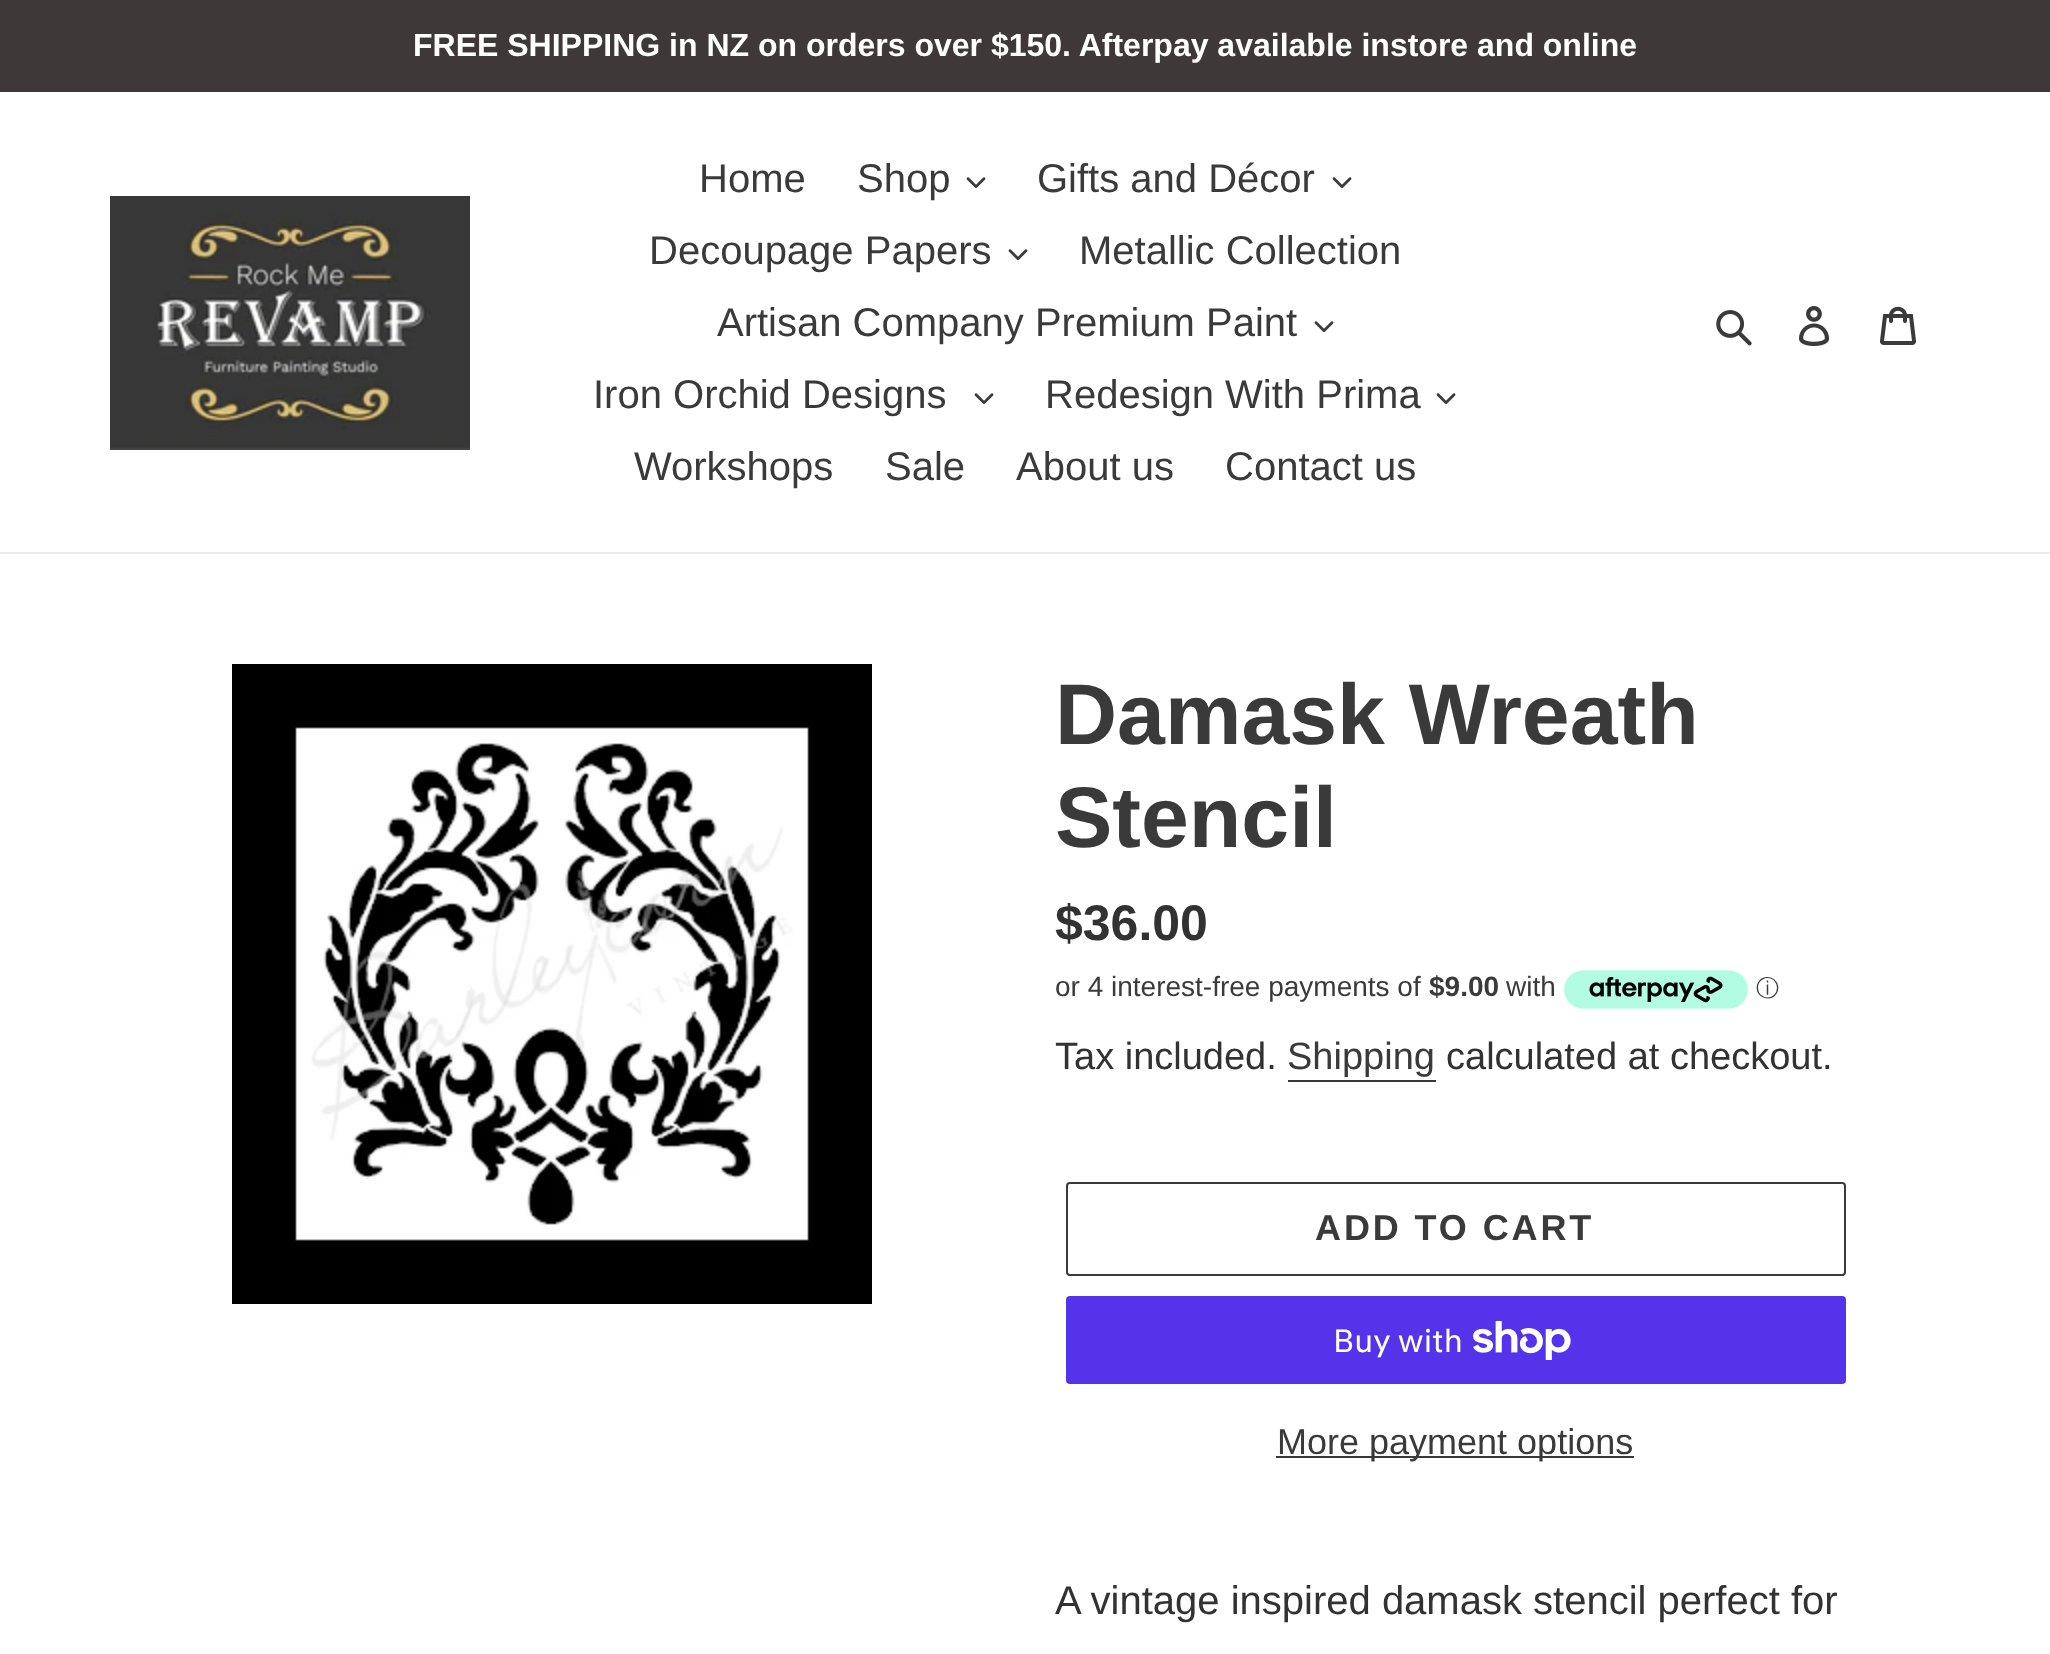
(async () => {
const canvas = document.querySelector("canvas")
canvas.width = 2050
canvas.height = 1654
const c = canvas.getContext("2d")
c.miterLimit = 4
c.fontKerning = "normal"
function T(s,x,y){c.fillText(s,x,y)}
function R(x,y,w,h){c.fillRect(x,y,w,h)}
function Q(x,y,w,h,r){c.beginPath();c.roundRect(x,y,w,h,r);c.fill()}
async function I(src,x,y,w,h){const img=new Image();img.src=src;await img.decode();c.drawImage(img,x,y,w,h)}
c.fillStyle="#fff"
R(0,0,2050,1654)
c.fillStyle="#3e3838"
R(0,0,2050,92)
c.font="bold 32px Liberation Sans"
c.fillStyle="#fff"
T("FREE SHIPPING in NZ on orders over $150. Afterpay available instore and online",413,56)
c.fillStyle="#ebebeb"
R(0,552,2050,2)
await I("1.png",110,196,360,254)
c.font="40px Liberation Sans"
c.fillStyle="#3a3a3a"
T("Home",699,192)
T("Shop",857,192)
await I("2.png",966,177,20,11)
T("Gifts and Décor",1037,192)
await I("2.png",1332,177,20,11)
T("Decoupage Papers",649,264)
await I("2.png",1008,249,20,11)
T("Metallic Collection",1079,264)
T("Artisan Company Premium Paint",717,336)
await I("2.png",1314,321,20,11)
T("Iron Orchid Designs",593,408)
await I("2.png",974,393,20,11)
T("Redesign With Prima",1045,408)
await I("2.png",1436,393,20,11)
T("Workshops",634,480)
T("Sale",885,480)
T("About us",1016,480)
T("Contact us",1225,480)
await I("3.png",1716,310,36,36)
await I("4.png",1799,306,31,40)
await I("5.png",1880,306,36,39)
await I("6.png",232,664,640,640)
c.font="bold 86px Liberation Sans"
T("Damask Wreath",1055,744)
T("Stencil",1055,847)
c.font="bold 50px Liberation Sans"
c.fillStyle="#333232"
T("$36.00",1055,940)
c.font="28px Liberation Sans"
c.fillStyle="#3a3a3a"
T("or 4 interest-free payments of",1055,996)
c.font="bold 28px Liberation Sans"
T("$9.00",1429,996)
c.font="28px Liberation Sans"
T("with",1506,996)
await I("7.png",1564,970,184,39)
c.font="500 23px WenQuanYi Zen Hei"
T("ⓘ",1756,996)
c.font="38px Liberation Sans"
c.fillStyle="#333232"
T("Tax included.",1055,1069)
c.fillStyle="#3a3a3a"
T("Shipping",1287,1069)
R(1288,1080,148,2)
c.fillStyle="#333232"
T("calculated at checkout.",1446,1069)
c.beginPath()
c.roundRect(1067,1183,778,92,3)
c.strokeStyle="#3a3a3a"
c.lineWidth=2
c.stroke()
c.letterSpacing="2.9px"
c.font="bold 36px Liberation Sans"
c.fillStyle="#3a3a3a"
T("ADD TO CART",1315,1240)
c.fillStyle="#5433eb"
Q(1066,1296,780,88,4)
c.letterSpacing="0px"
c.font="32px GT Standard"
c.fillStyle="#fff"
T("Buy with",1333,1352)
await I("8.png",1473,1321,98,39)
c.fillStyle="#3a3a3a"
R(1276,1456,358,2)
c.font="36px Liberation Sans"
T("More payment options",1277,1454)
c.font="40px Liberation Sans"
c.fillStyle="#333232"
T("A vintage inspired damask stencil perfect for",1055,1614)
})()
